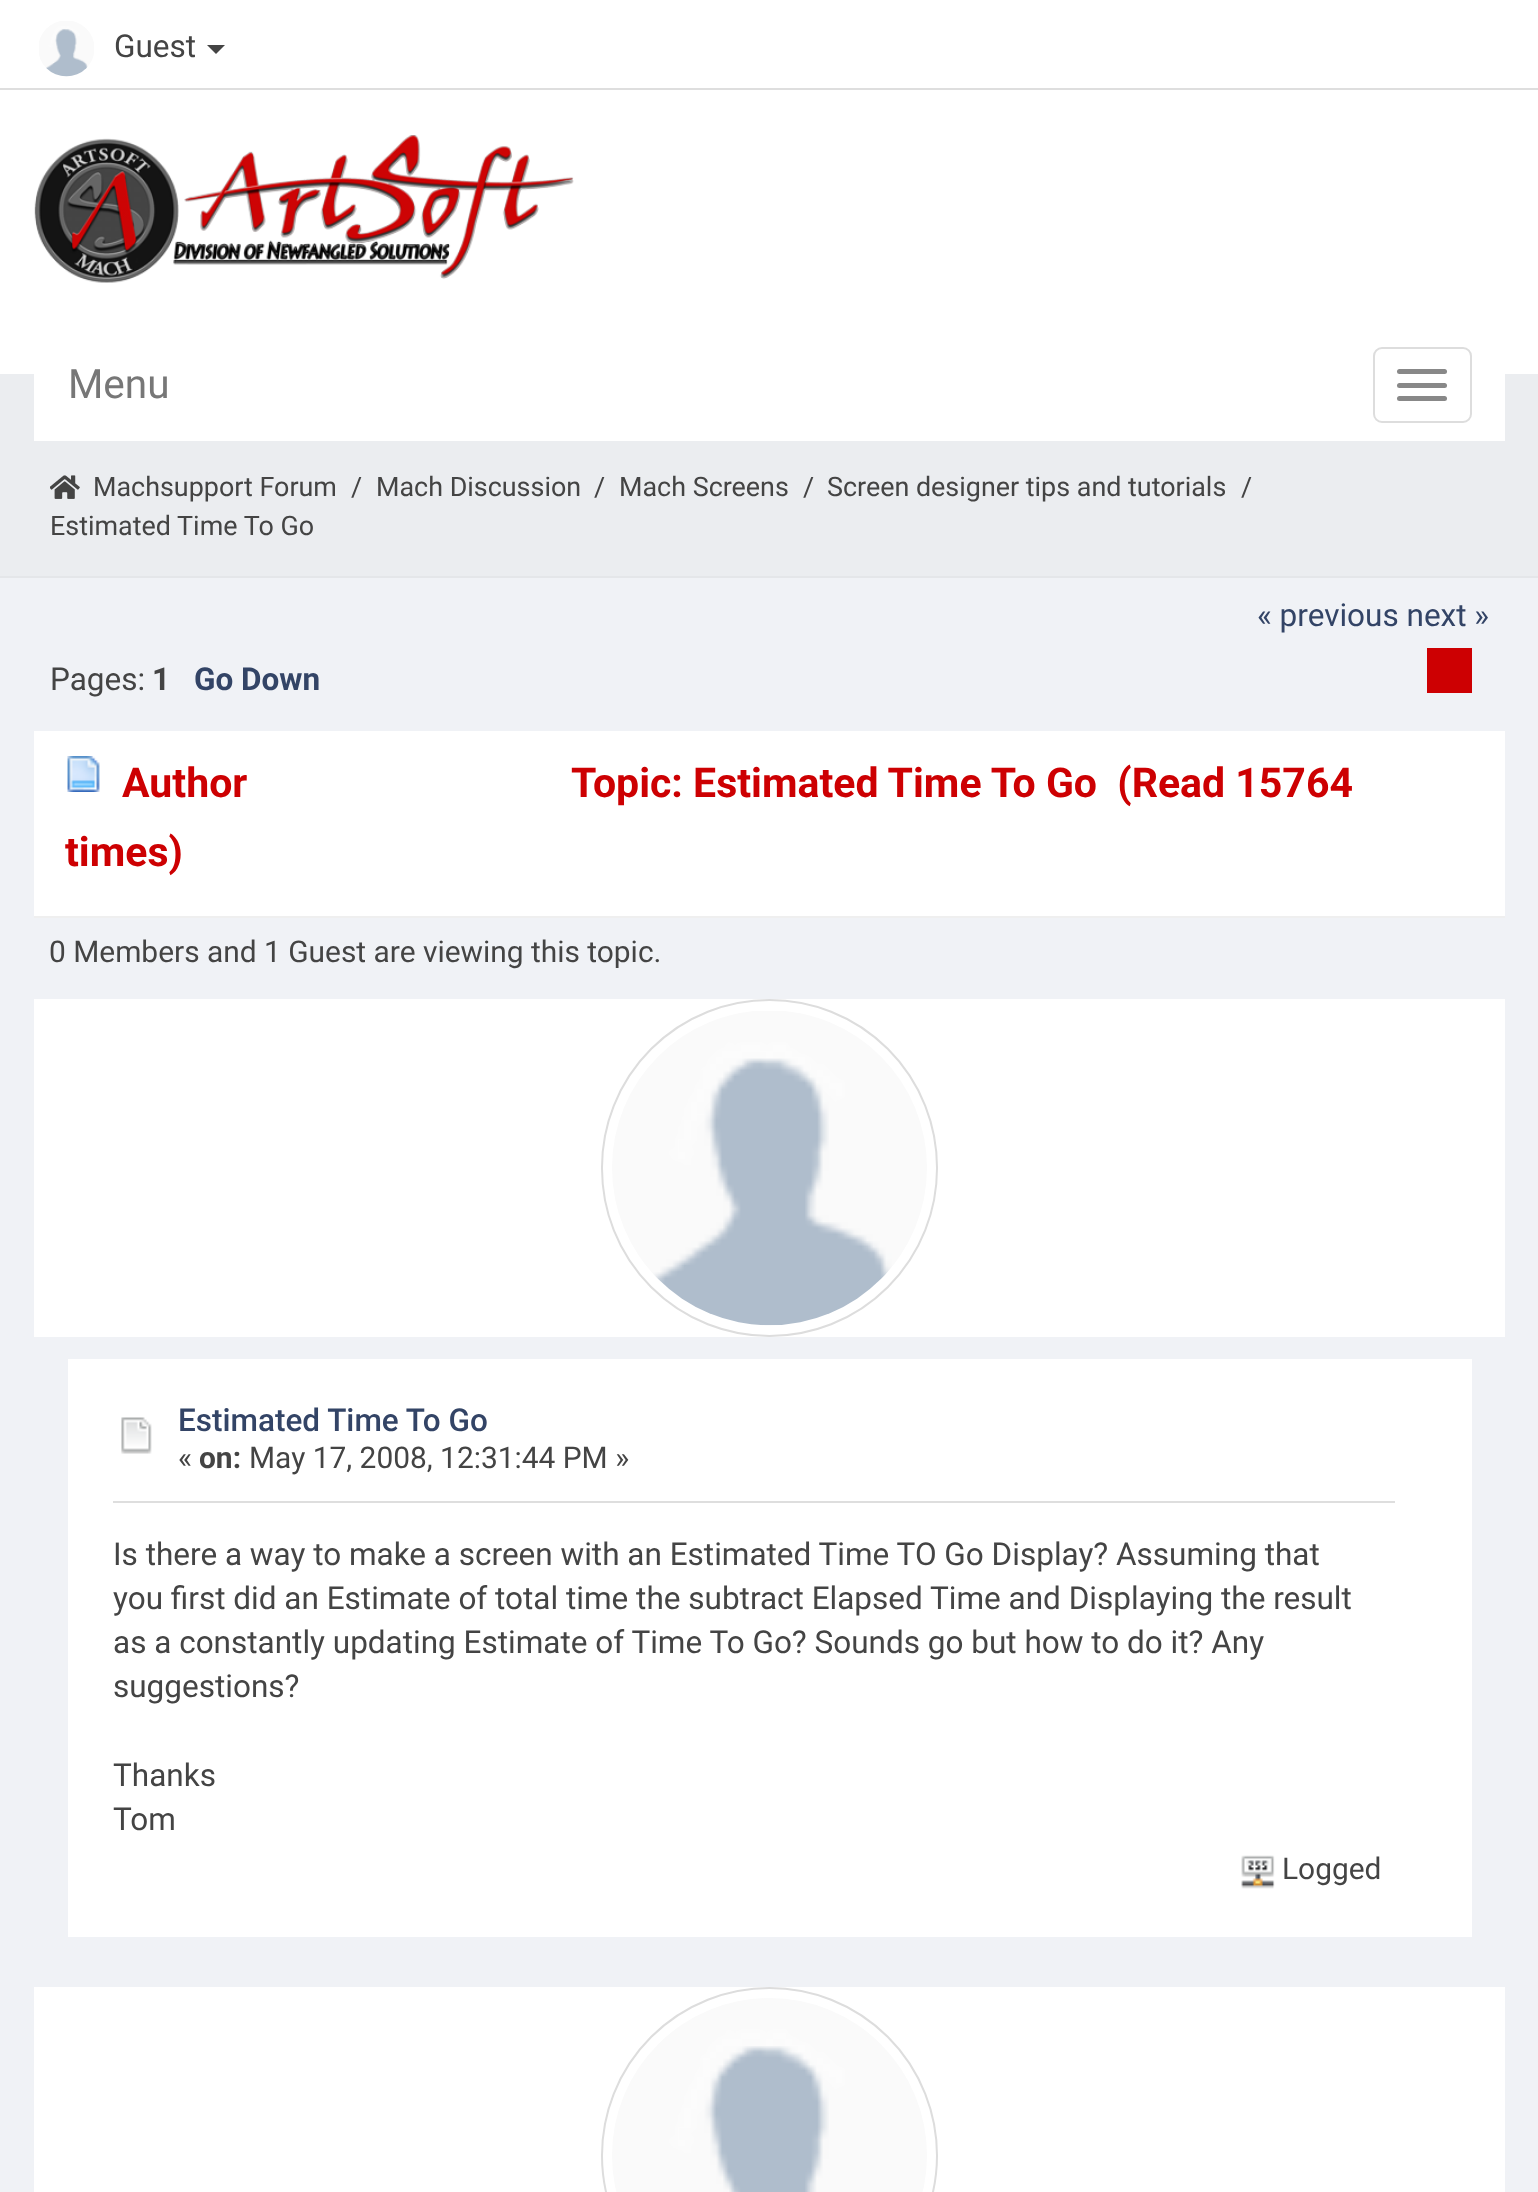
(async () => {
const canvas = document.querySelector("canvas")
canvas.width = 1538
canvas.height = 2192
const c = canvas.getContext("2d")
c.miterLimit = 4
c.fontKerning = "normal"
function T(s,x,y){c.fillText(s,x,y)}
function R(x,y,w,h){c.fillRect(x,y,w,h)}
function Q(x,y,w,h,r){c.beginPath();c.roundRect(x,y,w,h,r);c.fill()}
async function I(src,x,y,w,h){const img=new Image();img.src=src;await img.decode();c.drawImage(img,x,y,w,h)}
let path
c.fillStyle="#f0f2f6"
R(0,0,1538,2192)
c.fillStyle="#fff"
R(0,0,1538,88)
c.fillStyle="#dedede"
R(0,88,1538,2)
await I("1.png",39,21,55,56)
c.font="31.5px Roboto"
c.fillStyle="#444"
T("Guest",114,57)
path = new Path2D("M207 45h18l-9 9z")
c.fill(path)
c.fillStyle="#fff"
R(0,90,1538,284)
await I("2.png",34,135,540,148)
c.fillStyle="#ebedf0"
R(0,374,1538,202)
c.fillStyle="#fff"
R(34,374,1471,67)
c.font="40.5px Roboto"
c.fillStyle="#777"
T("Menu",68,398)
c.beginPath()
c.roundRect(1374,348,97,74,8)
c.strokeStyle="#ddd"
c.lineWidth=2
c.stroke()
c.fillStyle="#888"
Q(1397,369,50,5,2.5)
Q(1397,383,50,5,2.5)
Q(1397,396,50,5,2.5)
c.fillStyle="#e4e6e9"
R(0,576,1538,2)
await I("3.png",50,475,30,24)
c.font="26.9px Roboto"
c.fillStyle="#444"
T("Machsupport Forum",93,496)
T("/",351,496)
T("Mach Discussion",376,496)
T("/",594,496)
T("Mach Screens",619,496)
T("/",803,496)
T("Screen designer tips and tutorials",827,496)
T("/",1241,496)
T("Estimated Time To Go",50,535)
c.font="31.5px Roboto"
c.fillStyle="#346"
T("« previous next »",1257,626)
c.fillStyle="#444"
T("Pages:",50,690)
c.font="bold 31.5px Roboto"
T("1",152,690)
c.fillStyle="#346"
T("Go Down",194,690)
c.fillStyle="#cd0002"
R(1427,648,45,45)
c.fillStyle="#fff"
R(34,731,1471,185)
c.fillStyle="#efefef"
R(34,916,1471,2)
await I("4.png",67,756,33,36)
c.font="bold 41px Roboto"
c.fillStyle="#cd0002"
T("Author",122,797)
T("Topic: Estimated Time To Go  (Read 15764",571,797)
T("times)",65,866)
c.font="29.9px Roboto"
c.fillStyle="#444"
T("0 Members and 1 Guest are viewing this topic.",49,962)
c.fillStyle="#fff"
R(34,999,1471,338)
c.beginPath()
c.roundRect(602,1000,335,336,167.5)
c.stroke()
await I("5.png",612,1011,315,315)
R(68,1359,1404,578)
await I("6.png",121,1417,31,37)
c.font="500 31.5px Roboto"
c.fillStyle="#346"
T("Estimated Time To Go",178,1431)
c.font="29.9px Roboto"
c.fillStyle="#444"
T("«",178,1468)
c.font="bold 29.9px Roboto"
T("on:",199,1468)
c.font="29.9px Roboto"
T("May 17, 2008, 12:31:44 PM »",249,1468)
c.fillStyle="#dedede"
R(113,1501,1282,2)
c.font="31.5px Roboto"
c.fillStyle="#444"
T("Is there a way to make a screen with an Estimated Time TO Go Display? Assuming that",113,1565)
T("you first did an Estimate of total time the subtract Elapsed Time and Displaying the result",113,1609)
T("as a constantly updating Estimate of Time To Go? Sounds go but how to do it? Any",113,1653)
T("suggestions?",113,1697)
T("Thanks",113,1786)
T("Tom",113,1830)
await I("7.png",1241,1855,34,34)
c.font="29.9px Roboto"
T("Logged",1282,1879)
c.fillStyle="#fff"
R(34,1987,1471,205)
c.beginPath()
c.arc(769.5,2155.5,167.5,0,7)
c.stroke()
await I("8.png",612,1998,315,194)
})()
